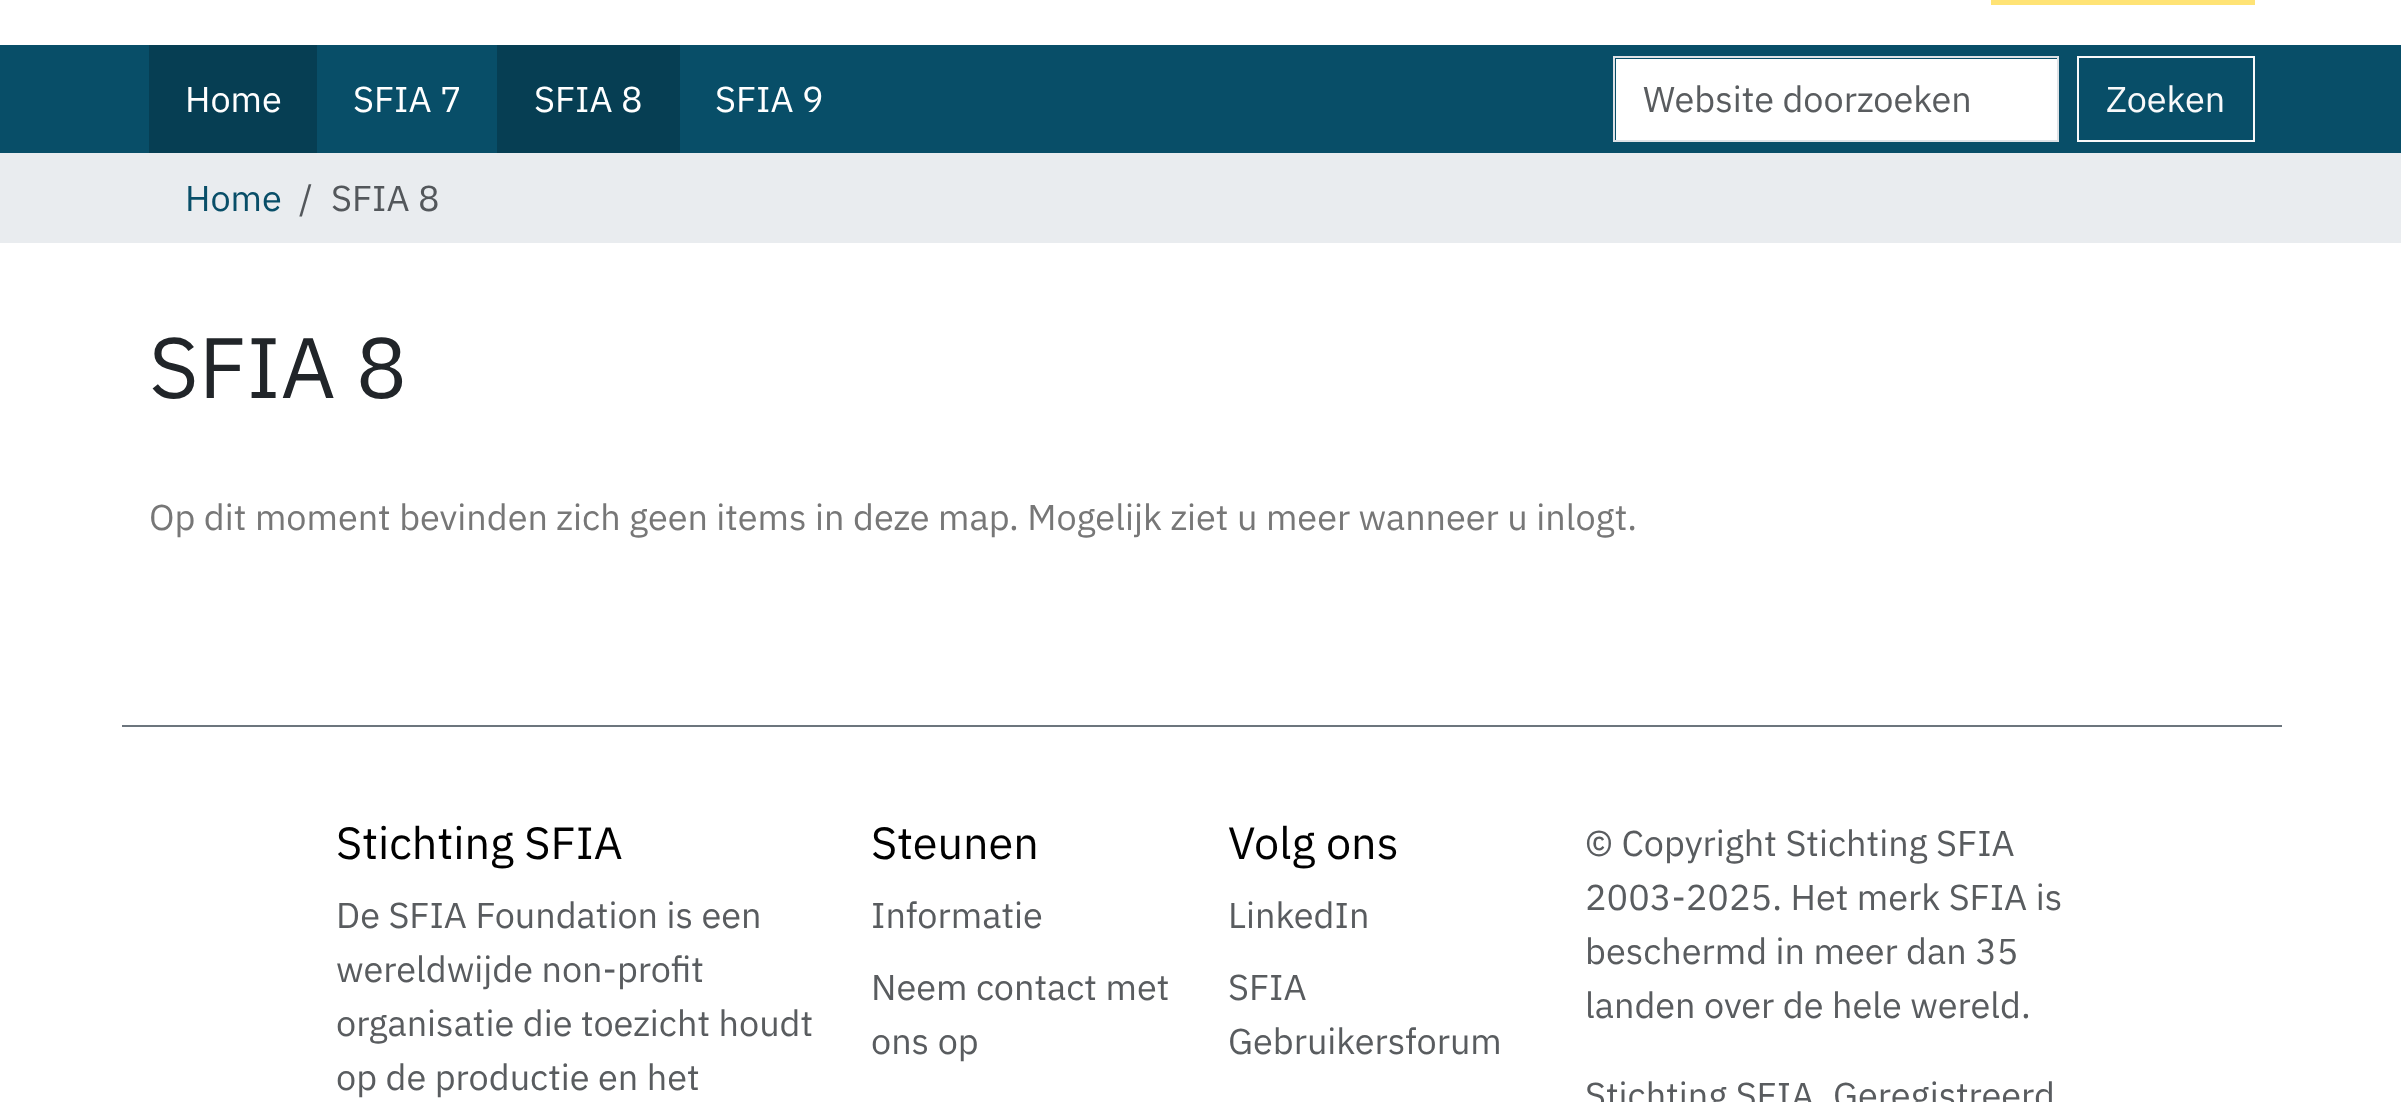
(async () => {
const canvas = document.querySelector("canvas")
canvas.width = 2401
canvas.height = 1102
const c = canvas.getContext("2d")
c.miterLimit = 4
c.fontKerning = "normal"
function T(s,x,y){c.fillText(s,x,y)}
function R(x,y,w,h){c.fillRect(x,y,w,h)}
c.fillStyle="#fff"
R(0,0,2401,1102)
c.fillStyle="#ffe375"
R(1991,0,264,5)
c.fillStyle="#084e68"
R(0,45,2401,108)
c.fillStyle="#063e53"
R(149,45,168,108)
c.font="36px IBM Plex Sans"
c.fillStyle="#fff"
T("Home",185,112)
T("SFIA 7",353,112)
c.fillStyle="#063e53"
R(497,45,183,108)
c.fillStyle="#fff"
T("SFIA 8",534,112)
T("SFIA 9",715,112)
R(1616,59,441,81)
c.strokeStyle="#dee2e6"
c.lineWidth=2
c.strokeRect(1614,57,444,84)
c.fillStyle="#595c5f"
T("Website doorzoeken",1643,112)
c.strokeStyle="#f8f9fa"
c.strokeRect(2078,57,176,84)
c.fillStyle="#f8f9fa"
T("Zoeken",2106,112)
c.fillStyle="#e9ecef"
R(0,153,2401,90)
c.fillStyle="#084e68"
T("Home",185,211)
c.fillStyle="#53575b"
T("/",299,211)
T("SFIA 8",331,211)
c.font="85.5px IBM Plex Sans"
c.fillStyle="#212529"
T("SFIA 8",149,398)
c.font="36px IBM Plex Sans"
c.fillStyle="#777"
T("Op dit moment bevinden zich geen items in deze map. Mogelijk ziet u meer wanneer u inlogt.",149,530)
c.fillStyle="#6c757d"
R(122,725,2160,2)
c.font="45px IBM Plex Sans"
c.fillStyle="#000"
T("Stichting SFIA",336,859)
c.font="36px IBM Plex Sans"
c.fillStyle="#595c5f"
T("De SFIA Foundation is een",336,928)
T("wereldwijde non-profit",336,982)
T("organisatie die toezicht houdt",336,1036)
T("op de productie en het",336,1090)
c.font="45px IBM Plex Sans"
c.fillStyle="#000"
T("Steunen",871,859)
c.font="36px IBM Plex Sans"
c.fillStyle="#595c5f"
T("Informatie",871,928)
T("Neem contact met",871,1000)
T("ons op",871,1054)
c.font="45px IBM Plex Sans"
c.fillStyle="#000"
T("Volg ons",1228,859)
c.font="36px IBM Plex Sans"
c.fillStyle="#595c5f"
T("LinkedIn",1228,928)
T("SFIA",1228,1000)
T("Gebruikersforum",1228,1054)
T("© Copyright Stichting SFIA",1585,856)
T("2003-2025. Het merk SFIA is",1585,910)
T("beschermd in meer dan 35",1585,964)
T("landen over de hele wereld.",1585,1018)
T("Stichting SFIA. Geregistreerd",1585,1108)
})()
